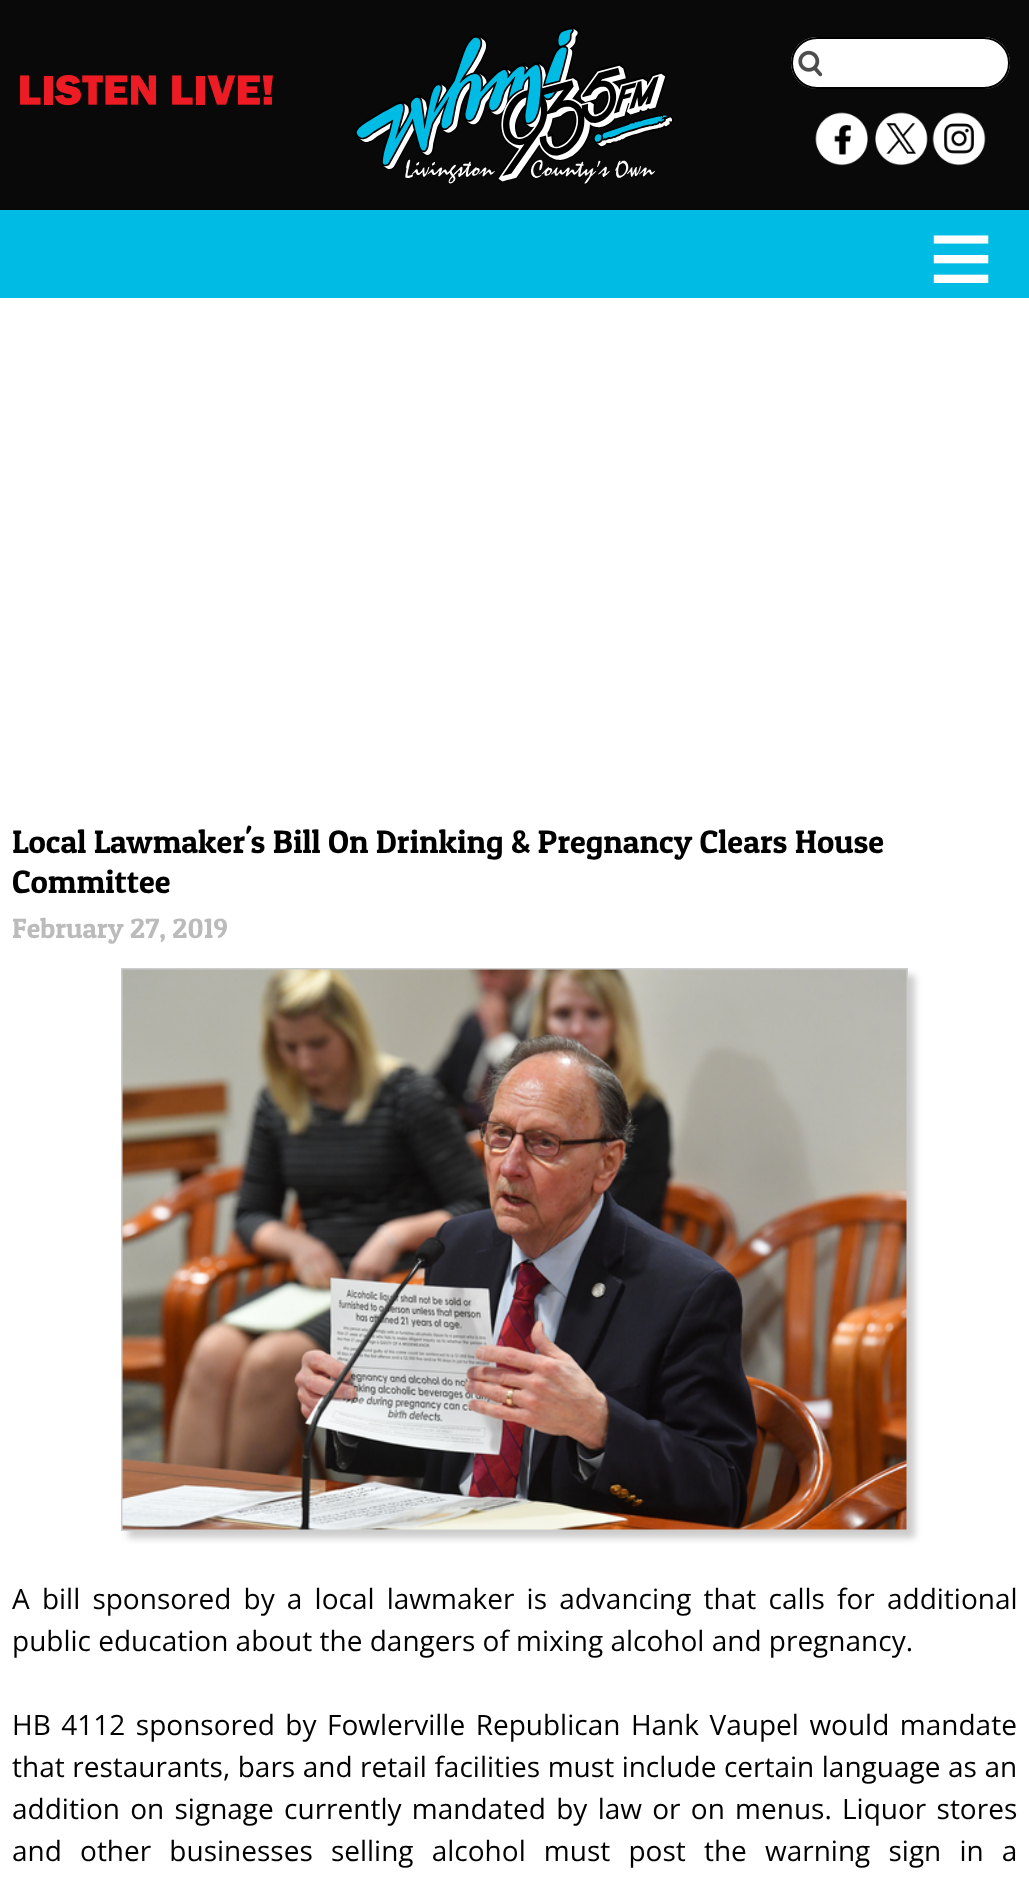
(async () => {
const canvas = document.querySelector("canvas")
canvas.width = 1029
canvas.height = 1893
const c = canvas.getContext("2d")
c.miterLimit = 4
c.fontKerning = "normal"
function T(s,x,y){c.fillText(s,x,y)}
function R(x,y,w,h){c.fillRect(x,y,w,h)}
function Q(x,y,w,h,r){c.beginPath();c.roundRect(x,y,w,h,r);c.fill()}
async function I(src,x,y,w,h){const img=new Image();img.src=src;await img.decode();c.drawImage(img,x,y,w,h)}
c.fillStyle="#fff"
R(0,0,1029,1893)
c.fillStyle="#090909"
R(0,0,1029,210)
await I("1.png",20,75,253,31)
await I("2.png",355,26,319,158)
c.fillStyle="#fff"
Q(791,37,219,52,26)
await I("3.png",798,50,25,27)
c.beginPath()
c.roundRect(792,38,217,50,25)
c.strokeStyle="#000"
c.lineWidth=2
c.stroke()
await I("4.png",815,112,53,54)
await I("5.png",875,112,53,54)
await I("6.png",932,112,54,54)
c.fillStyle="#00bbe4"
R(0,210,1029,88)
c.font="bold 117px Liberation Serif"
c.fillStyle="#fff"
T("≡",928,298)
c.font="32.7px Patua One"
c.fillStyle="#000"
T("Local Lawmaker's Bill On Drinking & Pregnancy Clears House",12,853)
T("Committee",12,893)
c.font="28px Patua One"
c.fillStyle="#bbb"
T("February 27, 2019",12,938)
c.fillStyle="#ccc"
c.filter="blur(3.5px)"
c.beginPath()
c.rect(128,975,787,563)
c.fill()
c.filter="none"
c.strokeStyle="#ccc"
c.strokeRect(122,969,785,561)
await I("7.png",122,969,785,561)
c.wordSpacing="4.9px"
c.font="28px Open Sans"
c.fillStyle="#000"
T("A bill sponsored by a local lawmaker is advancing that calls for additional",12,1609)
c.wordSpacing="0px"
T("public education about the dangers of mixing alcohol and pregnancy.",12,1651)
c.wordSpacing="3.25px"
T("HB 4112 sponsored by Fowlerville Republican Hank Vaupel would mandate",12,1735)
c.wordSpacing="0.25px"
T("that restaurants, bars and retail facilities must include certain language as an",12,1777)
c.wordSpacing="3px"
T("addition on signage currently mandated by law or on menus.",12,1819)
T("Liquor stores",842,1819)
c.wordSpacing="10.9px"
T("and other businesses selling alcohol must post the warning sign in a",12,1861)
})()
